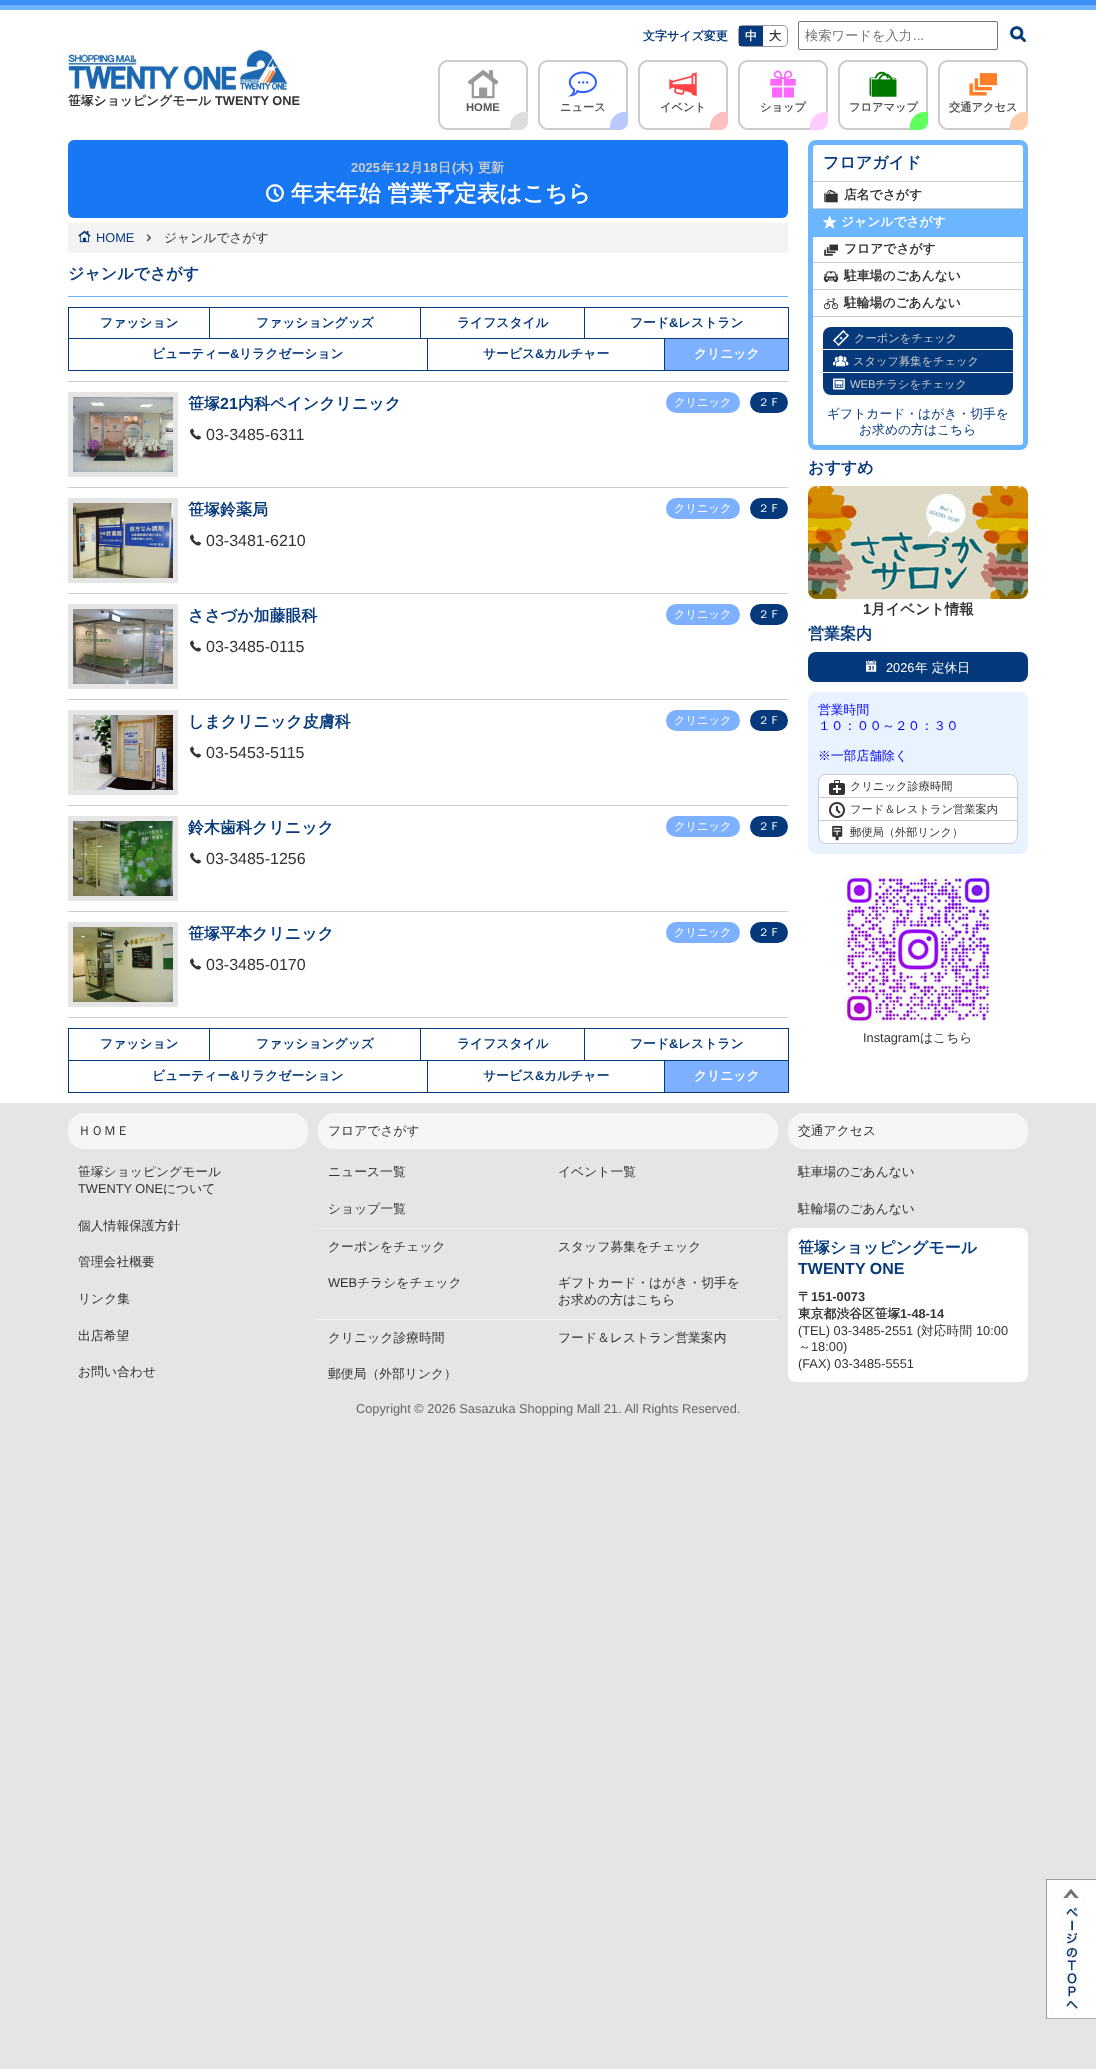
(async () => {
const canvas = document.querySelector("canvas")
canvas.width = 1096
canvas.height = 2069
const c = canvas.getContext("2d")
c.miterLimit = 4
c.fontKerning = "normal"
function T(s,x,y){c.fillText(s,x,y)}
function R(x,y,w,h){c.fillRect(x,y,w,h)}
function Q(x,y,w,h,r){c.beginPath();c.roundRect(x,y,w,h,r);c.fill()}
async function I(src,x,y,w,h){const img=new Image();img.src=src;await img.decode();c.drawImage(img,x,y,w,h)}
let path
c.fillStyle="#e5e5e5"
R(0,0,1096,2069)
c.fillStyle="#3c8ff7"
R(0,0,1096,5)
c.fillStyle="#fff"
R(0,10,1096,1093)
c.fillStyle="#6cb6ff"
R(0,5,1096,5)
await I("1.png",68,50,219,40)
c.font="bold 12.8px WenQuanYi Zen Hei"
c.fillStyle="#333"
T("笹塚ショッピングモール",68,105)
c.font="bold 12.8px Liberation Sans"
T("TWENTY ONE",215,105)
c.font="bold 12px WenQuanYi Zen Hei"
c.fillStyle="#063a7c"
T("文字サイズ変更",643,40)
c.beginPath()
c.roundRect(738.5,25.5,49,21,4.5)
c.strokeStyle="#999"
c.stroke()
R(739,26,24,20)
c.fillStyle="#fff"
T("中",745,40)
c.fillStyle="#333"
T("大",769,40)
c.beginPath()
c.roundRect(798.5,21.5,199,28,1.5)
c.strokeStyle="#767676"
c.stroke()
c.font="500 13.25px WenQuanYi Zen Hei"
c.fillStyle="#757575"
T("検索ワードを入力",805,40)
c.font="13.25px Liberation Sans"
T("...",913,40)
await I("2.png",1010,26,16,16)
await I("3.png",438,60,90,70)
await I("4.png",467,69,32,30)
c.font="bold 11.25px Liberation Sans"
c.fillStyle="#555"
T("HOME",466,111)
await I("5.png",538,60,90,70)
await I("6.png",568,71,29,26)
c.font="bold 11.25px WenQuanYi Zen Hei"
T("ニュース",560,111)
await I("7.png",638,60,90,70)
await I("8.png",669,72,28,25)
T("イベント",660,111)
await I("9.png",738,60,90,70)
await I("10.png",770,70,26,28)
T("ショップ",760,111)
await I("11.png",838,60,90,70)
await I("12.png",869,71,28,26)
T("フロアマップ",849,111)
await I("13.png",938,60,90,70)
await I("14.png",969,73,28,23)
T("交通アクセス",949,111)
c.fillStyle="#1877f2"
Q(68,140,720,78,6)
c.font="bold 13px Liberation Sans"
c.fillStyle="#ccc"
T("2025",351,172)
c.font="bold 13px WenQuanYi Zen Hei"
T("年",381,172)
c.font="bold 13px Liberation Sans"
T("12",395,172)
c.font="bold 13px WenQuanYi Zen Hei"
T("月",410,172)
c.font="bold 13px Liberation Sans"
T("18",423,172)
c.font="bold 13px WenQuanYi Zen Hei"
T("日",438,172)
c.font="bold 13px Liberation Sans"
T("(",452,172)
c.font="bold 13px WenQuanYi Zen Hei"
T("木",456,172)
c.font="bold 13px Liberation Sans"
T(")",469,172)
c.font="bold 13px WenQuanYi Zen Hei"
T("更新",478,172)
await I("15.png",266,184,18,19)
c.font="bold 22.4px WenQuanYi Zen Hei"
c.fillStyle="#fff"
T("年末年始 営業予定表はこちら",291,201)
c.fillStyle="#f3f3f3"
R(68,223,720,30)
await I("16.png",78,230,13,13)
c.font="12.8px Liberation Sans"
c.fillStyle="#063a7c"
T("HOME",96,242)
await I("17.png",146,234,5,8)
c.font="500 12.8px WenQuanYi Zen Hei"
c.fillStyle="#333"
T("ジャンルでさがす",164,242)
c.fillStyle="#6cb6ff"
R(68,296,720,1)
c.font="bold 16px WenQuanYi Zen Hei"
c.fillStyle="#063a7c"
T("ジャンルでさがす",68,279)
R(68,307,721,1)
R(68,307,1,31)
R(209,308,1,30)
c.font="bold 12.8px WenQuanYi Zen Hei"
T("ファッション",100,327)
R(420,308,1,30)
T("ファッショングッズ",256,327)
R(584,308,1,30)
T("ライフスタイル",457,327)
R(788,308,1,30)
T("フード",630,327)
c.font="bold 12.8px Liberation Sans"
T("&",669,327)
c.font="bold 12.8px WenQuanYi Zen Hei"
T("レストラン",678,327)
R(68,338,721,1)
R(68,338,1,33)
R(427,339,1,32)
R(69,370,359,1)
T("ビューティー",152,358)
c.font="bold 12.8px Liberation Sans"
T("&",230,358)
c.font="bold 12.8px WenQuanYi Zen Hei"
T("リラクゼーション",239,358)
R(664,339,1,32)
R(428,370,237,1)
T("サービス",483,358)
c.font="bold 12.8px Liberation Sans"
T("&",535,358)
c.font="bold 12.8px WenQuanYi Zen Hei"
T("カルチャー",544,358)
R(788,339,1,32)
R(665,370,124,1)
c.fillStyle="#7db1ff"
R(665,339,123,31)
c.fillStyle="#fff"
T("クリニック",694,358)
c.fillStyle="#ccc"
R(68,381,720,1)
R(68,487,720,1)
c.fillStyle="#e5e5e5"
R(68,392,110,85)
await I("18.png",73,397,100,75)
c.font="bold 16px WenQuanYi Zen Hei"
c.fillStyle="#063a7c"
T("笹塚",188,409)
c.font="bold 16px Liberation Sans"
T("21",220,409)
c.font="bold 16px WenQuanYi Zen Hei"
T("内科ペインクリニック",238,409)
c.fillStyle="#7db1ff"
Q(666,392,74,21,10.5)
c.font="500 11.25px WenQuanYi Zen Hei"
c.fillStyle="#fff"
T("クリニック",674,406)
c.fillStyle="#06397b"
Q(750,392,38,21,10.5)
c.fillStyle="#fff"
T("２Ｆ",758,406)
await I("19.png",190,428,12,12)
c.font="16px Liberation Sans"
c.fillStyle="#333"
T("03-3485-6311",206,440)
c.fillStyle="#ccc"
R(68,593,720,1)
c.fillStyle="#e5e5e5"
R(68,498,110,85)
await I("20.png",73,503,100,75)
c.font="bold 16px WenQuanYi Zen Hei"
c.fillStyle="#063a7c"
T("笹塚鈴薬局",188,515)
c.fillStyle="#7db1ff"
Q(666,498,74,21,10.5)
c.font="500 11.25px WenQuanYi Zen Hei"
c.fillStyle="#fff"
T("クリニック",674,512)
c.fillStyle="#06397b"
Q(750,498,38,21,10.5)
c.fillStyle="#fff"
T("２Ｆ",758,512)
await I("19.png",190,534,12,12)
c.font="16px Liberation Sans"
c.fillStyle="#333"
T("03-3481-6210",206,546)
c.fillStyle="#ccc"
R(68,699,720,1)
c.fillStyle="#e5e5e5"
R(68,604,110,85)
await I("21.png",73,609,100,75)
c.font="bold 16px WenQuanYi Zen Hei"
c.fillStyle="#063a7c"
T("ささづか加藤眼科",188,621)
c.fillStyle="#7db1ff"
Q(666,604,74,21,10.5)
c.font="500 11.25px WenQuanYi Zen Hei"
c.fillStyle="#fff"
T("クリニック",674,618)
c.fillStyle="#06397b"
Q(750,604,38,21,10.5)
c.fillStyle="#fff"
T("２Ｆ",758,618)
await I("19.png",190,640,12,12)
c.font="16px Liberation Sans"
c.fillStyle="#333"
T("03-3485-0115",206,652)
c.fillStyle="#ccc"
R(68,805,720,1)
c.fillStyle="#e5e5e5"
R(68,710,110,85)
await I("22.png",73,715,100,75)
c.font="bold 16px WenQuanYi Zen Hei"
c.fillStyle="#063a7c"
T("しまクリニック皮膚科",188,727)
c.fillStyle="#7db1ff"
Q(666,710,74,21,10.5)
c.font="500 11.25px WenQuanYi Zen Hei"
c.fillStyle="#fff"
T("クリニック",674,724)
c.fillStyle="#06397b"
Q(750,710,38,21,10.5)
c.fillStyle="#fff"
T("２Ｆ",758,724)
await I("19.png",190,746,12,12)
c.font="16px Liberation Sans"
c.fillStyle="#333"
T("03-5453-5115",206,758)
c.fillStyle="#ccc"
R(68,911,720,1)
c.fillStyle="#e5e5e5"
R(68,816,110,85)
await I("23.png",73,821,100,75)
c.font="bold 16px WenQuanYi Zen Hei"
c.fillStyle="#063a7c"
T("鈴木歯科クリニック",188,833)
c.fillStyle="#7db1ff"
Q(666,816,74,21,10.5)
c.font="500 11.25px WenQuanYi Zen Hei"
c.fillStyle="#fff"
T("クリニック",674,830)
c.fillStyle="#06397b"
Q(750,816,38,21,10.5)
c.fillStyle="#fff"
T("２Ｆ",758,830)
await I("19.png",190,852,12,12)
c.font="16px Liberation Sans"
c.fillStyle="#333"
T("03-3485-1256",206,864)
c.fillStyle="#ccc"
R(68,1017,720,1)
c.fillStyle="#e5e5e5"
R(68,922,110,85)
await I("24.png",73,927,100,75)
c.font="bold 16px WenQuanYi Zen Hei"
c.fillStyle="#063a7c"
T("笹塚平本クリニック",188,939)
c.fillStyle="#7db1ff"
Q(666,922,74,21,10.5)
c.font="500 11.25px WenQuanYi Zen Hei"
c.fillStyle="#fff"
T("クリニック",674,936)
c.fillStyle="#06397b"
Q(750,922,38,21,10.5)
c.fillStyle="#fff"
T("２Ｆ",758,936)
await I("19.png",190,958,12,12)
c.font="16px Liberation Sans"
c.fillStyle="#333"
T("03-3485-0170",206,970)
c.fillStyle="#063a7c"
R(68,1028,721,1)
R(68,1028,1,32)
R(209,1029,1,31)
c.font="bold 12.8px WenQuanYi Zen Hei"
T("ファッション",100,1048)
R(420,1029,1,31)
T("ファッショングッズ",256,1048)
R(584,1029,1,31)
T("ライフスタイル",457,1048)
R(788,1029,1,31)
T("フード",630,1048)
c.font="bold 12.8px Liberation Sans"
T("&",669,1048)
c.font="bold 12.8px WenQuanYi Zen Hei"
T("レストラン",678,1048)
R(68,1060,721,1)
R(68,1060,1,33)
R(427,1061,1,32)
R(69,1092,359,1)
T("ビューティー",152,1080)
c.font="bold 12.8px Liberation Sans"
T("&",230,1080)
c.font="bold 12.8px WenQuanYi Zen Hei"
T("リラクゼーション",239,1080)
R(664,1061,1,32)
R(428,1092,237,1)
T("サービス",483,1080)
c.font="bold 12.8px Liberation Sans"
T("&",535,1080)
c.font="bold 12.8px WenQuanYi Zen Hei"
T("カルチャー",544,1080)
R(788,1061,1,32)
R(665,1092,124,1)
c.fillStyle="#7db1ff"
R(665,1061,123,31)
c.fillStyle="#fff"
T("クリニック",694,1080)
c.beginPath()
c.roundRect(810.5,142.5,215,305,5.5)
c.strokeStyle="#6cb6ff"
c.lineWidth=5
c.stroke()
c.font="bold 16px WenQuanYi Zen Hei"
c.fillStyle="#063a7c"
T("フロアガイド",823,168)
c.fillStyle="#ccc"
R(813,181,210,1)
R(813,208,210,1)
await I("25.png",824,189,14,14)
c.font="bold 12.8px WenQuanYi Zen Hei"
c.fillStyle="#333"
T("店名でさがす",844,199)
c.fillStyle="#6cb6ff"
R(813,209,210,28)
await I("26.png",823,215,14,14)
c.fillStyle="#fff"
T("ジャンルでさがす",841,226)
c.fillStyle="#ccc"
R(813,262,210,1)
await I("27.png",824,244,14,12)
c.fillStyle="#333"
T("フロアでさがす",844,253)
c.fillStyle="#ccc"
R(813,289,210,1)
await I("28.png",823,271,16,12)
c.fillStyle="#333"
T("駐車場のごあんない",844,280)
c.fillStyle="#ccc"
R(813,316,210,1)
await I("29.png",823,298,16,12)
c.fillStyle="#333"
T("駐輪場のごあんない",844,307)
c.fillStyle="#06397b"
c.beginPath()
c.roundRect(823,327,190,23,[8,8,0,0])
c.fill()
c.fillStyle="#fff"
R(823,349,190,1)
await I("30.png",833,330,16,16)
c.font="500 11.25px WenQuanYi Zen Hei"
c.fillStyle="#ccc"
T("クーポンをチェック",854,342)
c.fillStyle="#06397b"
R(823,350,190,22)
await I("31.png",833,355,16,12)
c.fillStyle="#ccc"
T("スタッフ募集をチェック",853,365)
c.fillStyle="#06397b"
c.beginPath()
c.roundRect(823,373,190,22,[0,0,8,8])
c.fill()
await I("32.png",833,378,12,12)
c.font="11.25px Liberation Sans"
c.fillStyle="#ccc"
T("WEB",850,388)
c.font="500 11.25px WenQuanYi Zen Hei"
T("チラシをチェック",875,388)
c.font="500 12.8px WenQuanYi Zen Hei"
c.fillStyle="#063a7c"
T("ギフトカード・はがき・切手を",827,418)
T("お求めの方はこちら",859,434)
c.font="bold 16px WenQuanYi Zen Hei"
T("おすすめ",808,473)
await I("33.png",808,486,220,113)
c.font="bold 14.5px Liberation Sans"
c.fillStyle="#333"
T("1",863,614)
c.font="bold 14.5px WenQuanYi Zen Hei"
T("月イベント情報",871,614)
c.font="bold 16px WenQuanYi Zen Hei"
c.fillStyle="#063a7c"
T("営業案内",808,639)
c.fillStyle="#06397b"
Q(808,652,220,30,8)
await I("34.png",866,660,11,12)
c.font="12.8px Liberation Sans"
c.fillStyle="#fff"
T("2026",886,672)
c.font="500 12.8px WenQuanYi Zen Hei"
T("年 定休日",915,672)
c.fillStyle="#e8f3ff"
Q(808,692,220,162,8)
c.fillStyle="#00f"
T("営業時間",818,714)
T("１０：００～２０：３０",818,730)
T("※一部店舗除く",818,760)
c.beginPath()
c.roundRect(818.5,774.5,199,69,7.5)
c.strokeStyle="#ccc"
c.lineWidth=1
c.stroke()
c.fillStyle="#fff"
c.beginPath()
c.roundRect(819,775,198,23,[8,8,0,0])
c.fill()
c.fillStyle="#ccc"
R(819,797,198,1)
await I("35.png",829,780,16,15)
c.font="500 11.25px WenQuanYi Zen Hei"
c.fillStyle="#333"
T("クリニック診療時間",850,790)
c.fillStyle="#fff"
R(819,798,198,22)
c.fillStyle="#ccc"
R(819,820,198,1)
await I("36.png",829,802,16,16)
c.fillStyle="#333"
T("フード＆レストラン営業案内",850,813)
c.fillStyle="#fff"
c.beginPath()
c.roundRect(819,821,198,22,[0,0,8,8])
c.fill()
await I("37.png",832,825,11,16)
c.fillStyle="#333"
T("郵便局（外部リンク）",850,836)
await I("38.png",843,874,150,150)
c.font="12.8px Liberation Sans"
T("Instagram",863,1042)
c.font="500 12.8px WenQuanYi Zen Hei"
T("はこちら",920,1042)
c.fillStyle="#f6f6f6"
Q(68,1113,240,36,16)
c.fillStyle="#333"
T("ＨＯＭＥ",78,1135)
T("笹塚ショッピングモール",78,1176)
c.font="12.8px Liberation Sans"
T("TWENTY ONE",78,1193)
c.font="500 12.8px WenQuanYi Zen Hei"
T("について",163,1193)
T("個人情報保護方針",78,1230)
T("管理会社概要",78,1266)
T("リンク集",78,1303)
T("出店希望",78,1340)
T("お問い合わせ",78,1376)
path = new Path2D("M318 1228.5h460")
c.strokeStyle="#fff"
c.setLineDash([1,1])
c.stroke(path)
c.fillStyle="#f6f6f6"
Q(318,1113,460,36,16)
c.fillStyle="#333"
T("フロアでさがす",328,1135)
T("ニュース一覧",328,1176)
T("イベント一覧",558,1176)
T("ショップ一覧",328,1213)
path = new Path2D("M318 1319.5h460")
c.stroke(path)
T("クーポンをチェック",328,1251)
T("スタッフ募集をチェック",558,1251)
c.font="12.8px Liberation Sans"
T("WEB",328,1287)
c.font="500 12.8px WenQuanYi Zen Hei"
T("チラシをチェック",357,1287)
T("ギフトカード・はがき・切手を",558,1287)
T("お求めの方はこちら",558,1304)
T("クリニック診療時間",328,1342)
T("フード＆レストラン営業案内",558,1342)
T("郵便局（外部リンク）",328,1378)
c.fillStyle="#f6f6f6"
Q(788,1113,240,36,16)
c.fillStyle="#333"
T("交通アクセス",798,1135)
T("駐車場のごあんない",798,1176)
T("駐輪場のごあんない",798,1213)
c.fillStyle="#fff"
Q(788,1228,240,154,8)
c.font="bold 16px WenQuanYi Zen Hei"
c.fillStyle="#063a7c"
T("笹塚ショッピングモール",798,1253)
c.font="bold 16px Liberation Sans"
T("TWENTY ONE",798,1274)
c.font="bold 12.8px WenQuanYi Zen Hei"
c.fillStyle="#333"
T("〒",798,1301)
c.font="bold 12.8px Liberation Sans"
T("151-0073",811,1301)
c.font="bold 12.8px WenQuanYi Zen Hei"
T("東京都渋谷区笹塚",798,1318)
c.font="bold 12.8px Liberation Sans"
T("1-48-14",900,1318)
c.font="12.8px Liberation Sans"
T("(TEL) 03-3485-2551 (",798,1335)
c.font="500 12.8px WenQuanYi Zen Hei"
T("対応時間",921,1335)
c.font="12.8px Liberation Sans"
T("10:00",976,1335)
c.font="500 12.8px WenQuanYi Zen Hei"
T("～",798,1351)
c.font="12.8px Liberation Sans"
T("18:00)",811,1351)
T("(FAX) 03-3485-5551",798,1368)
c.fillStyle="#666"
T("Copyright © 2026 Sasazuka Shopping Mall 21. All Rights Reserved.",356,1413)
await I("39.png",1046,1879,50,140)
})()
